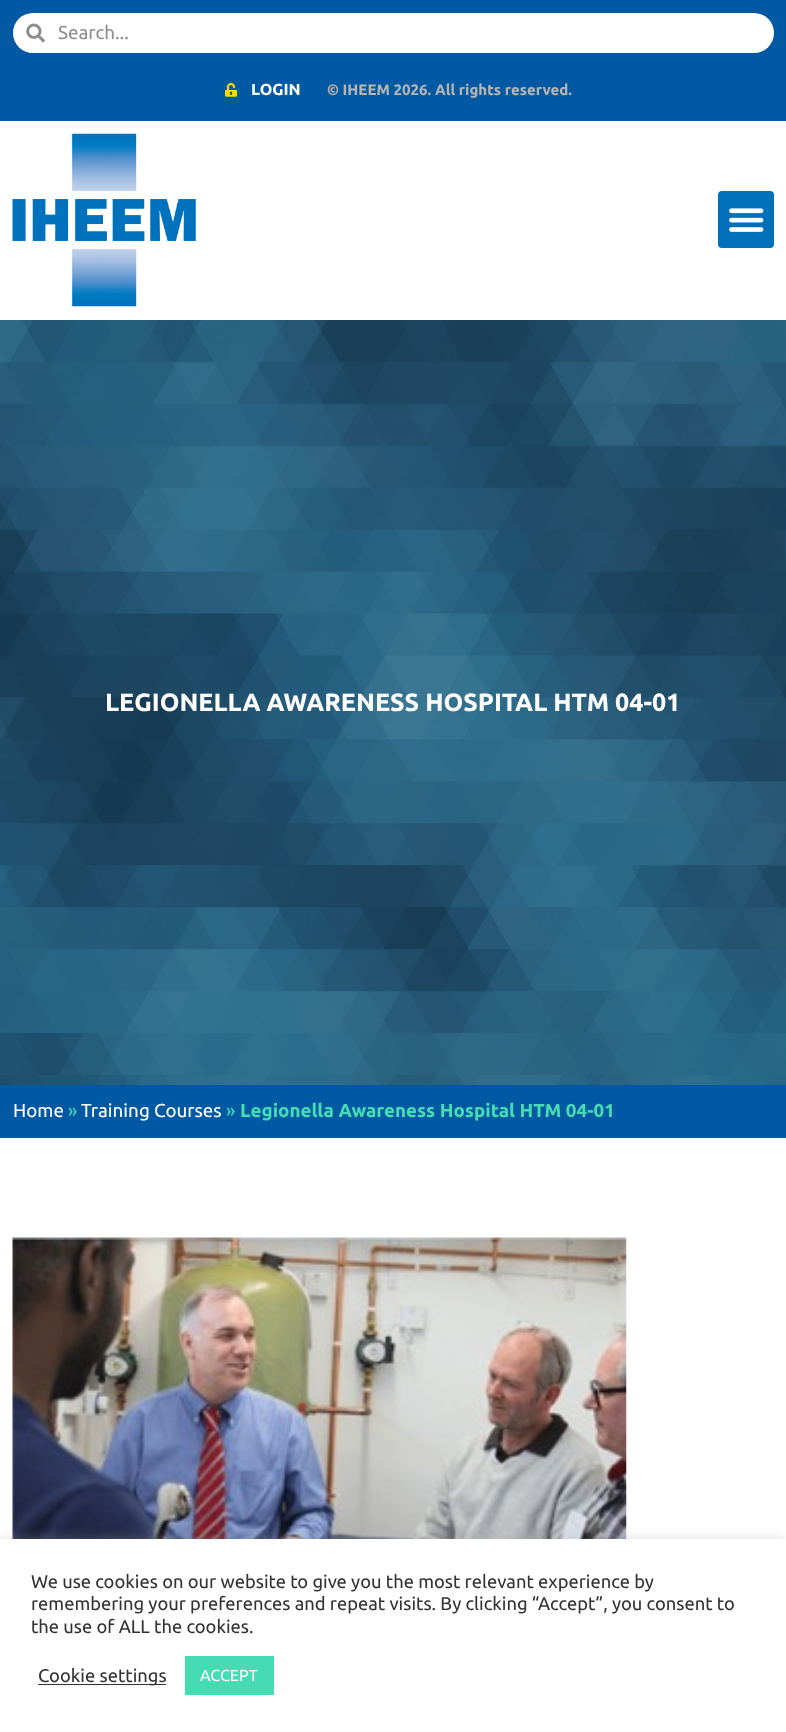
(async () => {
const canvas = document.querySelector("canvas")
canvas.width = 786
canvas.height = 1732
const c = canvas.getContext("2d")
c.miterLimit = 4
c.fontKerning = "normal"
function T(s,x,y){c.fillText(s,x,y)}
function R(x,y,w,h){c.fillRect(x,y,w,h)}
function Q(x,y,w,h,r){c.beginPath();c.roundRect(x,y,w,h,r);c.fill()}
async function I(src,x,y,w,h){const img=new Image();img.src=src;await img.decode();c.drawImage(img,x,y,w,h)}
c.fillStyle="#fff"
R(0,0,786,1732)
c.fillStyle="#0159a3"
R(0,0,786,121)
c.fillStyle="#fff"
Q(13,13,761,40,20)
await I("1.png",26,23,19,20)
c.font="18.75px Ubuntu"
c.fillStyle="#8d8d8d"
T("Search...",58,39)
await I("2.png",225,83,13,14)
c.font="bold 16px Ubuntu"
c.fillStyle="#fff"
T("LOGIN",251,95)
c.font="bold 15px Ubuntu"
c.fillStyle="#b5b5b5"
T("© IHEEM 2026. All rights reserved.",327,95)
await I("3.png",12,133,184,174)
c.fillStyle="#0070ba"
Q(718,191,56,57,4)
await I("4.png",729,208,35,24)
await I("5.png",0,320,786,765)
c.font="bold 25px Ubuntu"
c.fillStyle="#fff"
T("LEGIONELLA AWARENESS HOSPITAL HTM 04-01",105,711)
c.fillStyle="#0159a3"
R(0,1085,786,53)
c.font="18.75px Ubuntu"
c.fillStyle="#fff"
T("Home",13,1117)
c.fillStyle="#45dbb3"
T("»",68,1117)
c.fillStyle="#fff"
T("Training Courses",81,1117)
c.fillStyle="#45dbb3"
T("»",226,1117)
c.font="bold 18.75px Ubuntu"
T("Legionella Awareness Hospital HTM 04-01",240,1117)
await I("6.png",12,1237,615,302)
c.fillStyle="#acabab4d"
c.filter="blur(6px)"
c.beginPath()
c.rect(0,1538,786,193)
c.fill()
c.filter="none"
c.fillStyle="#fff"
R(0,1539,786,193)
c.font="18.35px Ubuntu"
c.fillStyle="#333"
T("We use cookies on our website to give you the most relevant experience by",31,1588)
T("remembering your preferences and repeat visits. By clicking “Accept”, you consent to",31,1610)
T("the use of ALL the cookies.",31,1633)
R(38,1684,128,1)
T("Cookie settings",38,1682)
c.fillStyle="#45dbb3"
R(185,1656,89,39)
c.font="16px Ubuntu"
c.fillStyle="#fff"
T("ACCEPT",200,1681)
})()
